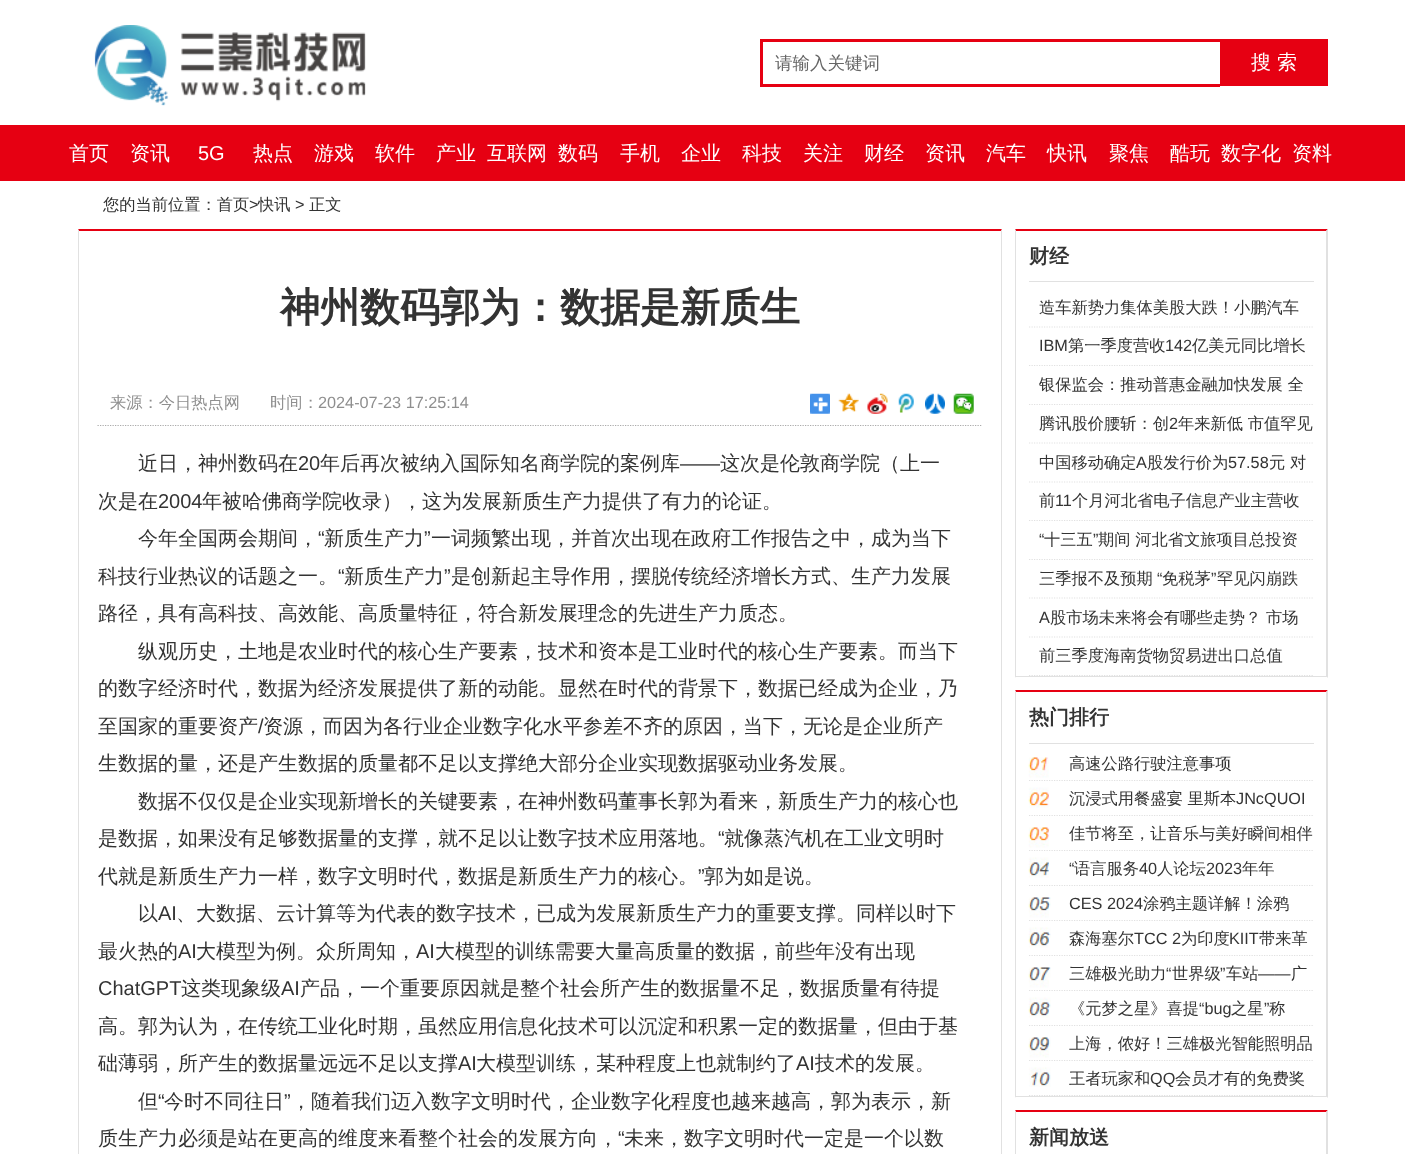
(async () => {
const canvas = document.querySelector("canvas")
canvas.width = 1405
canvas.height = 1154
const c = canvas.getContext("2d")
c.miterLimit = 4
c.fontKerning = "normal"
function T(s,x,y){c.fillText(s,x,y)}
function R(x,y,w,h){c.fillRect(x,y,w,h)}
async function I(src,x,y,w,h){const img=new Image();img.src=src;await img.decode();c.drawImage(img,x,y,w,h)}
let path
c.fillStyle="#fff"
R(0,0,1405,1154)
await I("1.png",94,25,272,81)
c.fillStyle="#e60012"
R(760,39,460,3)
R(760,84,460,3)
R(760,39,3,47)
c.font="500 17.5px WenQuanYi Zen Hei"
c.fillStyle="#666"
T("请输入关键词",775,69)
c.fillStyle="#e60012"
R(1220,39,108,47)
c.font="500 20px WenQuanYi Zen Hei"
c.fillStyle="#fff"
T("搜 索",1251,69)
c.fillStyle="#e60012"
R(0,125,1405,56)
c.fillStyle="#fff"
T("首页",69,160)
T("资讯",130,160)
c.font="20px Liberation Sans"
T("5G",198,160)
c.font="500 20px WenQuanYi Zen Hei"
T("热点",253,160)
T("游戏",314,160)
T("软件",375,160)
T("产业",436,160)
T("互联网",487,160)
T("数码",558,160)
T("手机",620,160)
T("企业",681,160)
T("科技",742,160)
T("关注",803,160)
T("财经",864,160)
T("资讯",925,160)
T("汽车",986,160)
T("快讯",1047,160)
T("聚焦",1109,160)
T("酷玩",1170,160)
T("数字化",1221,160)
T("资料",1292,160)
c.font="500 16.25px WenQuanYi Zen Hei"
c.fillStyle="#333"
T("您的当前位置：首页",103,210)
c.font="16.25px Liberation Sans"
T(">",249,210)
c.font="500 16.25px WenQuanYi Zen Hei"
T("快讯",258,210)
c.font="16.25px Liberation Sans"
T(">",295,210)
c.font="500 16.25px WenQuanYi Zen Hei"
T("正文",309,210)
c.fillStyle="#e60012"
path = new Path2D("M78 229h924l-1 2h-922z")
c.fill(path)
c.fillStyle="#e1e1e1"
path = new Path2D("M1002 229v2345l-1-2v-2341z")
c.fill(path)
path = new Path2D("M78 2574v-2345l1 2v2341z")
c.fill(path)
c.font="bold 40px WenQuanYi Zen Hei"
c.fillStyle="#333"
T("神州数码郭为：数据是新质生",280,321)
path = new Path2D("M97.5 425.5h885")
c.strokeStyle="#ababab"
c.lineWidth=1.2
c.setLineDash([1.25,1.25])
c.stroke(path)
c.font="500 16.25px WenQuanYi Zen Hei"
c.fillStyle="#8f8f8f"
T("来源：今日热点网",110,408)
T("时间：",270,408)
c.font="16.25px Liberation Sans"
T("2024-07-23 17:25:14",318,408)
await I("2.png",810,393,20,21)
await I("3.png",838,393,21,19)
await I("4.png",867,393,21,21)
await I("5.png",898,393,16,20)
await I("6.png",925,393,20,21)
await I("7.png",953,393,21,21)
c.font="500 20px WenQuanYi Zen Hei"
c.fillStyle="#333"
T("近日，神州数码在",138,470)
c.font="20px Liberation Sans"
T("20",298,470)
c.font="500 20px WenQuanYi Zen Hei"
T("年后再次被纳入国际知名商学院的案例库",320,470)
c.font="20px Liberation Sans"
T("——",680,470)
c.font="500 20px WenQuanYi Zen Hei"
T("这次是伦敦商学院（上一",720,470)
T("次是在",98,508)
c.font="20px Liberation Sans"
T("2004",158,508)
c.font="500 20px WenQuanYi Zen Hei"
T("年被哈佛商学院收录），这为发展新质生产力提供了有力的论证。",202,508)
T("今年全国两会期间，",138,545)
c.font="20px Liberation Sans"
T("“",318,545)
c.font="500 20px WenQuanYi Zen Hei"
T("新质生产力",324,545)
c.font="20px Liberation Sans"
T("”",424,545)
c.font="500 20px WenQuanYi Zen Hei"
T("一词频繁出现，并首次出现在政府工作报告之中，成为当下",431,545)
T("科技行业热议的话题之一。",98,583)
c.font="20px Liberation Sans"
T("“",338,583)
c.font="500 20px WenQuanYi Zen Hei"
T("新质生产力",344,583)
c.font="20px Liberation Sans"
T("”",444,583)
c.font="500 20px WenQuanYi Zen Hei"
T("是创新起主导作用，摆脱传统经济增长方式、生产力发展",451,583)
T("路径，具有高科技、高效能、高质量特征，符合新发展理念的先进生产力质态。",98,620)
T("纵观历史，土地是农业时代的核心生产要素，技术和资本是工业时代的核心生产要素。而当下",138,658)
T("的数字经济时代，数据为经济发展提供了新的动能。显然在时代的背景下，数据已经成为企业，乃",98,695)
T("至国家的重要资产",98,733)
c.font="20px Liberation Sans"
T("/",258,733)
c.font="500 20px WenQuanYi Zen Hei"
T("资源，而因为各行业企业数字化水平参差不齐的原因，当下，无论是企业所产",263,733)
T("生数据的量，还是产生数据的质量都不足以支撑绝大部分企业实现数据驱动业务发展。",98,770)
T("数据不仅仅是企业实现新增长的关键要素，在神州数码董事长郭为看来，新质生产力的核心也",138,808)
T("是数据，如果没有足够数据量的支撑，就不足以让数字技术应用落地。",98,845)
c.font="20px Liberation Sans"
T("“",718,845)
c.font="500 20px WenQuanYi Zen Hei"
T("就像蒸汽机在工业文明时",724,845)
T("代就是新质生产力一样，数字文明时代，数据是新质生产力的核心。",98,883)
c.font="20px Liberation Sans"
T("”",698,883)
c.font="500 20px WenQuanYi Zen Hei"
T("郭为如是说。",704,883)
T("以",138,920)
c.font="20px Liberation Sans"
T("AI",158,920)
c.font="500 20px WenQuanYi Zen Hei"
T("、大数据、云计算等为代表的数字技术，已成为发展新质生产力的重要支撑。同样以时下",176,920)
T("最火热的",98,958)
c.font="20px Liberation Sans"
T("AI",178,958)
c.font="500 20px WenQuanYi Zen Hei"
T("大模型为例。众所周知，",196,958)
c.font="20px Liberation Sans"
T("AI",416,958)
c.font="500 20px WenQuanYi Zen Hei"
T("大模型的训练需要大量高质量的数据，前些年没有出现",435,958)
c.font="20px Liberation Sans"
T("ChatGPT",98,995)
c.font="500 20px WenQuanYi Zen Hei"
T("这类现象级",181,995)
c.font="20px Liberation Sans"
T("AI",281,995)
c.font="500 20px WenQuanYi Zen Hei"
T("产品，一个重要原因就是整个社会所产生的数据量不足，数据质量有待提",300,995)
T("高。郭为认为，在传统工业化时期，虽然应用信息化技术可以沉淀和积累一定的数据量，但由于基",98,1033)
T("础薄弱，所产生的数据量远远不足以支撑",98,1070)
c.font="20px Liberation Sans"
T("AI",458,1070)
c.font="500 20px WenQuanYi Zen Hei"
T("大模型训练，某种程度上也就制约了",476,1070)
c.font="20px Liberation Sans"
T("AI",796,1070)
c.font="500 20px WenQuanYi Zen Hei"
T("技术的发展。",815,1070)
T("但",138,1108)
c.font="20px Liberation Sans"
T("“",158,1108)
c.font="500 20px WenQuanYi Zen Hei"
T("今时不同往日",164,1108)
c.font="20px Liberation Sans"
T("”",284,1108)
c.font="500 20px WenQuanYi Zen Hei"
T("，随着我们迈入数字文明时代，企业数字化程度也越来越高，郭为表示，新",291,1108)
T("质生产力必须是站在更高的维度来看整个社会的发展方向，",98,1145)
c.font="20px Liberation Sans"
T("“",618,1145)
c.font="500 20px WenQuanYi Zen Hei"
T("未来，数字文明时代一定是一个以数",624,1145)
c.fillStyle="#e60012"
path = new Path2D("M1015 229h313l-2 2h-310z")
c.fill(path)
c.fillStyle="#e1e1e1"
path = new Path2D("M1328 229v449l-2-2v-445z")
c.fill(path)
R(1015,676,313,1)
path = new Path2D("M1015 678v-449l1 2v445z")
c.fill(path)
R(1029,281,285,1)
c.font="bold 20px WenQuanYi Zen Hei"
c.fillStyle="#333"
T("财经",1029,263)
path = new Path2D("M1029 327h285")
c.strokeStyle="#e1e1e1"
c.stroke(path)
c.font="500 16.25px WenQuanYi Zen Hei"
T("造车新势力集体美股大跌！小鹏汽车",1039,313)
path = new Path2D("M1029 365.5h285")
c.stroke(path)
c.font="16.25px Liberation Sans"
T("IBM",1039,351)
c.font="500 16.25px WenQuanYi Zen Hei"
T("第一季度营收",1068,351)
c.font="16.25px Liberation Sans"
T("142",1165,351)
c.font="500 16.25px WenQuanYi Zen Hei"
T("亿美元同比增长",1192,351)
path = new Path2D("M1029 404.5h285")
c.stroke(path)
T("银保监会：推动普惠金融加快发展 全",1039,390)
path = new Path2D("M1029 443h285")
c.stroke(path)
T("腾讯股价腰斩：创",1039,429)
c.font="16.25px Liberation Sans"
T("2",1169,429)
c.font="500 16.25px WenQuanYi Zen Hei"
T("年来新低 市值罕见",1178,429)
path = new Path2D("M1029 482h285")
c.stroke(path)
T("中国移动确定",1039,468)
c.font="16.25px Liberation Sans"
T("A",1136,468)
c.font="500 16.25px WenQuanYi Zen Hei"
T("股发行价为",1147,468)
c.font="16.25px Liberation Sans"
T("57.58",1228,468)
c.font="500 16.25px WenQuanYi Zen Hei"
T("元 对",1269,468)
path = new Path2D("M1029 520.5h285")
c.stroke(path)
T("前",1039,506)
c.font="16.25px Liberation Sans"
T("11",1055,506)
c.font="500 16.25px WenQuanYi Zen Hei"
T("个月河北省电子信息产业主营收",1072,506)
path = new Path2D("M1029 559.5h285")
c.stroke(path)
c.font="16.25px Liberation Sans"
T("“",1039,545)
c.font="500 16.25px WenQuanYi Zen Hei"
T("十三五",1044,545)
c.font="16.25px Liberation Sans"
T("”",1093,545)
c.font="500 16.25px WenQuanYi Zen Hei"
T("期间 河北省文旅项目总投资",1098,545)
path = new Path2D("M1029 598h285")
c.stroke(path)
T("三季报不及预期",1039,584)
c.font="16.25px Liberation Sans"
T("“",1157,584)
c.font="500 16.25px WenQuanYi Zen Hei"
T("免税茅",1162,584)
c.font="16.25px Liberation Sans"
T("”",1211,584)
c.font="500 16.25px WenQuanYi Zen Hei"
T("罕见闪崩跌",1217,584)
path = new Path2D("M1029 637h285")
c.stroke(path)
c.font="16.25px Liberation Sans"
T("A",1039,623)
c.font="500 16.25px WenQuanYi Zen Hei"
T("股市场未来将会有哪些走势？ 市场",1050,623)
c.save()
c.beginPath()
c.rect(1016,231,310,445)
c.clip()
path = new Path2D("M1029 675.5h285")
c.stroke(path)
c.restore()
T("前三季度海南货物贸易进出口总值",1039,661)
c.fillStyle="#e60012"
path = new Path2D("M1015 690h313l-2 2h-310z")
c.fill(path)
c.fillStyle="#e1e1e1"
path = new Path2D("M1328 690v408l-2-2v-404z")
c.fill(path)
R(1015,1096,313,1)
path = new Path2D("M1015 1098v-408l1 2v404z")
c.fill(path)
R(1029,743,285,1)
c.font="bold 20px WenQuanYi Zen Hei"
c.fillStyle="#333"
T("热门排行",1029,724)
await I("8.png",1028,757,23,330)
path = new Path2D("M1029 780.5h285")
c.stroke(path)
c.font="500 16.25px WenQuanYi Zen Hei"
T("高速公路行驶注意事项",1069,769)
path = new Path2D("M1029 815.5h285")
c.stroke(path)
T("沉浸式用餐盛宴 里斯本",1069,804)
c.font="16.25px Liberation Sans"
T("JNcQUOI",1236,804)
path = new Path2D("M1029 850.5h285")
c.stroke(path)
c.font="500 16.25px WenQuanYi Zen Hei"
T("佳节将至，让音乐与美好瞬间相伴",1069,839)
path = new Path2D("M1029 885.5h285")
c.stroke(path)
c.font="16.25px Liberation Sans"
T("“",1069,874)
c.font="500 16.25px WenQuanYi Zen Hei"
T("语言服务",1074,874)
c.font="16.25px Liberation Sans"
T("40",1139,874)
c.font="500 16.25px WenQuanYi Zen Hei"
T("人论坛",1157,874)
c.font="16.25px Liberation Sans"
T("2023",1206,874)
c.font="500 16.25px WenQuanYi Zen Hei"
T("年年",1242,874)
path = new Path2D("M1029 920.5h285")
c.stroke(path)
c.font="16.25px Liberation Sans"
T("CES 2024",1069,909)
c.font="500 16.25px WenQuanYi Zen Hei"
T("涂鸦主题详解！涂鸦",1143,909)
path = new Path2D("M1029 955.5h285")
c.stroke(path)
T("森海塞尔",1069,944)
c.font="16.25px Liberation Sans"
T("TCC 2",1134,944)
c.font="500 16.25px WenQuanYi Zen Hei"
T("为印度",1181,944)
c.font="16.25px Liberation Sans"
T("KIIT",1229,944)
c.font="500 16.25px WenQuanYi Zen Hei"
T("带来革",1259,944)
path = new Path2D("M1029 990.5h285")
c.stroke(path)
T("三雄极光助力",1069,979)
c.font="16.25px Liberation Sans"
T("“",1166,979)
c.font="500 16.25px WenQuanYi Zen Hei"
T("世界级",1172,979)
c.font="16.25px Liberation Sans"
T("”",1220,979)
c.font="500 16.25px WenQuanYi Zen Hei"
T("车站",1226,979)
T("广",1291,979)
c.font="16.25px Liberation Sans"
T("——",1258,979)
path = new Path2D("M1029 1025.5h285")
c.stroke(path)
c.font="500 16.25px WenQuanYi Zen Hei"
T("《元梦之星》喜提",1069,1014)
c.font="16.25px Liberation Sans"
T("“bug",1199,1014)
c.font="500 16.25px WenQuanYi Zen Hei"
T("之星",1231,1014)
c.font="16.25px Liberation Sans"
T("”",1264,1014)
c.font="500 16.25px WenQuanYi Zen Hei"
T("称",1269,1014)
path = new Path2D("M1029 1060.5h285")
c.stroke(path)
T("上海，侬好！三雄极光智能照明品",1069,1049)
c.save()
c.beginPath()
c.rect(1016,693,310,403)
c.clip()
path = new Path2D("M1029 1095.5h285")
c.stroke(path)
c.restore()
T("王者玩家和",1069,1084)
c.font="16.25px Liberation Sans"
T("QQ",1150,1084)
c.font="500 16.25px WenQuanYi Zen Hei"
T("会员才有的免费奖",1175,1084)
c.fillStyle="#e60012"
path = new Path2D("M1015 1110h313l-2 2h-310z")
c.fill(path)
c.fillStyle="#e1e1e1"
path = new Path2D("M1328 1110v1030l-2-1v-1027z")
c.fill(path)
path = new Path2D("M1015 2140v-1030l1 2v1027z")
c.fill(path)
c.font="bold 20px WenQuanYi Zen Hei"
c.fillStyle="#333"
T("新闻放送",1029,1144)
})()
